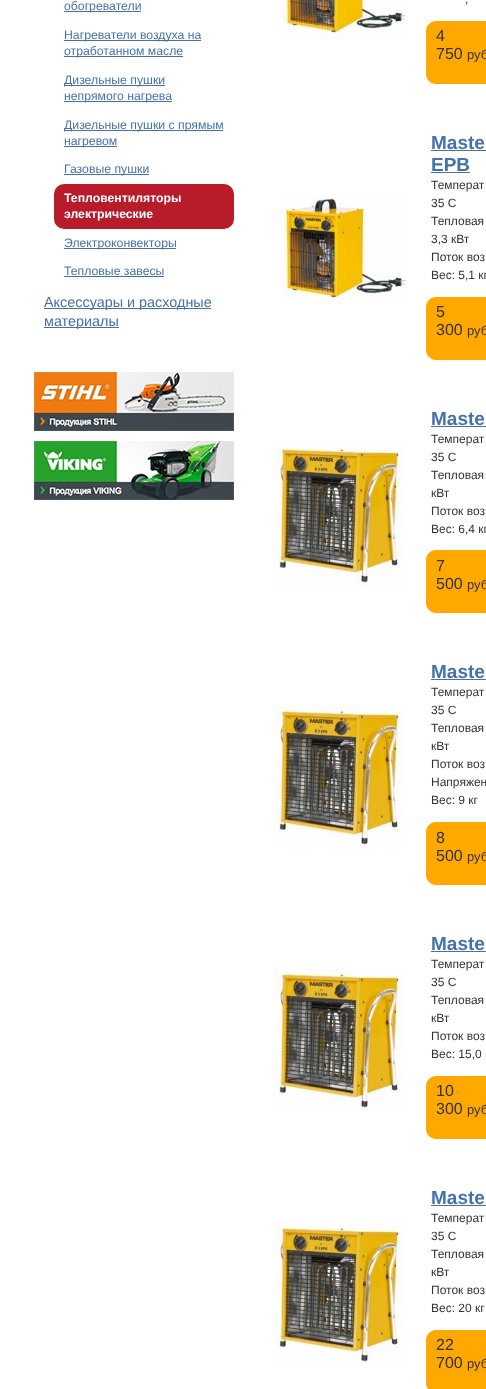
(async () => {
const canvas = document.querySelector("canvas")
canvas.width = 486
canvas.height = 1389
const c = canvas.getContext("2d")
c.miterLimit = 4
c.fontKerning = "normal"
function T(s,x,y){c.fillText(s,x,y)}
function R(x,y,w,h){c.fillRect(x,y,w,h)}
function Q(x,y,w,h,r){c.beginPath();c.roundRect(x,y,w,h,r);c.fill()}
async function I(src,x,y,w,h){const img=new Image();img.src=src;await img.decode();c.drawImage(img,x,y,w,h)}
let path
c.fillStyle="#fff"
R(0,0,486,1389)
c.fillStyle="#4572ad"
R(64,11,77,1)
c.font="12.25px Liberation Sans"
T("обогреватели",64,10)
R(64,40,137,1)
T("Нагреватели воздуха на",64,39)
R(64,56,119,1)
T("отработанном масле",64,55)
R(64,85,101,1)
T("Дизельные пушки",64,84)
R(64,101,108,1)
T("непрямого нагрева",64,100)
R(64,130,159,1)
T("Дизельные пушки с прямым",64,129)
R(64,146,53,1)
T("нагревом",64,145)
R(64,174,85,1)
T("Газовые пушки",64,173)
c.fillStyle="#b81b2a"
Q(54,184,180,45,10)
c.font="bold 12.25px Liberation Sans"
c.fillStyle="#fff"
T("Тепловентиляторы",64,202)
T("электрические",64,218)
c.fillStyle="#4572ad"
R(64,248,112,1)
c.font="12.25px Liberation Sans"
T("Электроконвекторы",64,247)
T("Тепловые завесы",64,275)
R(64,276,100,1)
R(44,308,167,1)
c.font="14.4px Liberation Sans"
T("Аксессуары и расходные",44,307)
R(44,327,75,1)
T("материалы",44,326)
await I("1.png",34,372,200,59)
await I("2.png",34,441,200,59)
await I("3.png",282,0,125,39)
c.font="12px Liberation Sans"
c.fillStyle="#333"
T(",",465,3)
c.fillStyle="#ffa900"
path = new Path2D("M436 21h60v63h-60c-5.5 0-10-4.5-10-10v-43c0-5.5 4.5-10 10-10z")
c.fill(path)
c.font="16px Liberation Sans"
c.fillStyle="#333"
T("4",436,41)
T("750",436,59)
c.font="13px Liberation Sans"
T("руб",467,59)
await I("4.png",282,197,125,107)
c.font="bold 19px Liberation Sans"
c.fillStyle="#4572ad"
T("Maste",431,149)
R(431,150,55,1)
T("EPB",431,171)
R(431,172,39,1)
c.font="12px Liberation Sans"
c.fillStyle="#333"
T("Температ",431,189)
T("35 С",431,207)
T("Тепловая",431,225)
T("3,3 кВт",431,243)
T("Поток воз",431,261)
T("Вес: 5,1 кг",431,279)
c.fillStyle="#ffa900"
path = new Path2D("M436 297h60v63h-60c-5.5 0-10-4.5-10-10v-43c0-5.5 4.5-10 10-10z")
c.fill(path)
c.font="16px Liberation Sans"
c.fillStyle="#333"
T("5",436,317)
T("300",436,335)
c.font="13px Liberation Sans"
T("руб",467,335)
await I("5.png",274,442,131,145)
c.font="bold 19px Liberation Sans"
c.fillStyle="#4572ad"
T("Maste",431,425)
R(431,426,55,1)
c.font="12px Liberation Sans"
c.fillStyle="#333"
T("Температ",431,443)
T("35 С",431,461)
T("Тепловая",431,479)
T("кВт",431,497)
T("Поток воз",431,515)
T("Вес: 6,4 кг",431,533)
c.fillStyle="#ffa900"
path = new Path2D("M436 550h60v63h-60c-5.5 0-10-4.5-10-10v-43c0-5.5 4.5-10 10-10z")
c.fill(path)
c.font="16px Liberation Sans"
c.fillStyle="#333"
T("7",436,571)
T("500",436,589)
c.font="13px Liberation Sans"
T("руб",467,589)
await I("5.png",274,704,131,145)
c.font="bold 19px Liberation Sans"
c.fillStyle="#4572ad"
T("Maste",431,678)
R(431,679,55,1)
c.font="12px Liberation Sans"
c.fillStyle="#333"
T("Температ",431,696)
T("35 С",431,714)
T("Тепловая",431,732)
T("кВт",431,750)
T("Поток воз",431,768)
T("Напряжен",431,786)
T("Вес: 9 кг",431,804)
c.fillStyle="#ffa900"
path = new Path2D("M436 822h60v63h-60c-5.5 0-10-4.5-10-10v-43c0-5.5 4.5-10 10-10z")
c.fill(path)
c.font="16px Liberation Sans"
c.fillStyle="#333"
T("8",436,843)
T("500",436,861)
c.font="13px Liberation Sans"
T("руб",467,861)
await I("5.png",274,967,131,145)
c.font="bold 19px Liberation Sans"
c.fillStyle="#4572ad"
T("Maste",431,950)
R(431,951,55,1)
c.font="12px Liberation Sans"
c.fillStyle="#333"
T("Температ",431,968)
T("35 С",431,986)
T("Тепловая",431,1004)
T("кВт",431,1022)
T("Поток воз",431,1040)
T("Вес: 15,0",431,1058)
c.fillStyle="#ffa900"
path = new Path2D("M436 1076h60v63h-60c-5.5 0-10-4.5-10-10v-43c0-5.5 4.5-10 10-10z")
c.fill(path)
c.font="16px Liberation Sans"
c.fillStyle="#333"
T("10",436,1096)
T("300",436,1114)
c.font="13px Liberation Sans"
T("руб",467,1114)
await I("5.png",274,1221,131,145)
c.font="bold 19px Liberation Sans"
c.fillStyle="#4572ad"
T("Maste",431,1204)
R(431,1205,55,1)
c.font="12px Liberation Sans"
c.fillStyle="#333"
T("Температ",431,1222)
T("35 С",431,1240)
T("Тепловая",431,1258)
T("кВт",431,1276)
T("Поток воз",431,1294)
T("Вес: 20 кг",431,1312)
c.fillStyle="#ffa900"
path = new Path2D("M436 1330h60v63h-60c-5.5 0-10-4.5-10-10v-43c0-5.5 4.5-10 10-10z")
c.fill(path)
c.font="16px Liberation Sans"
c.fillStyle="#333"
T("22",436,1350)
T("700",436,1368)
c.font="13px Liberation Sans"
T("руб",467,1368)
})()
